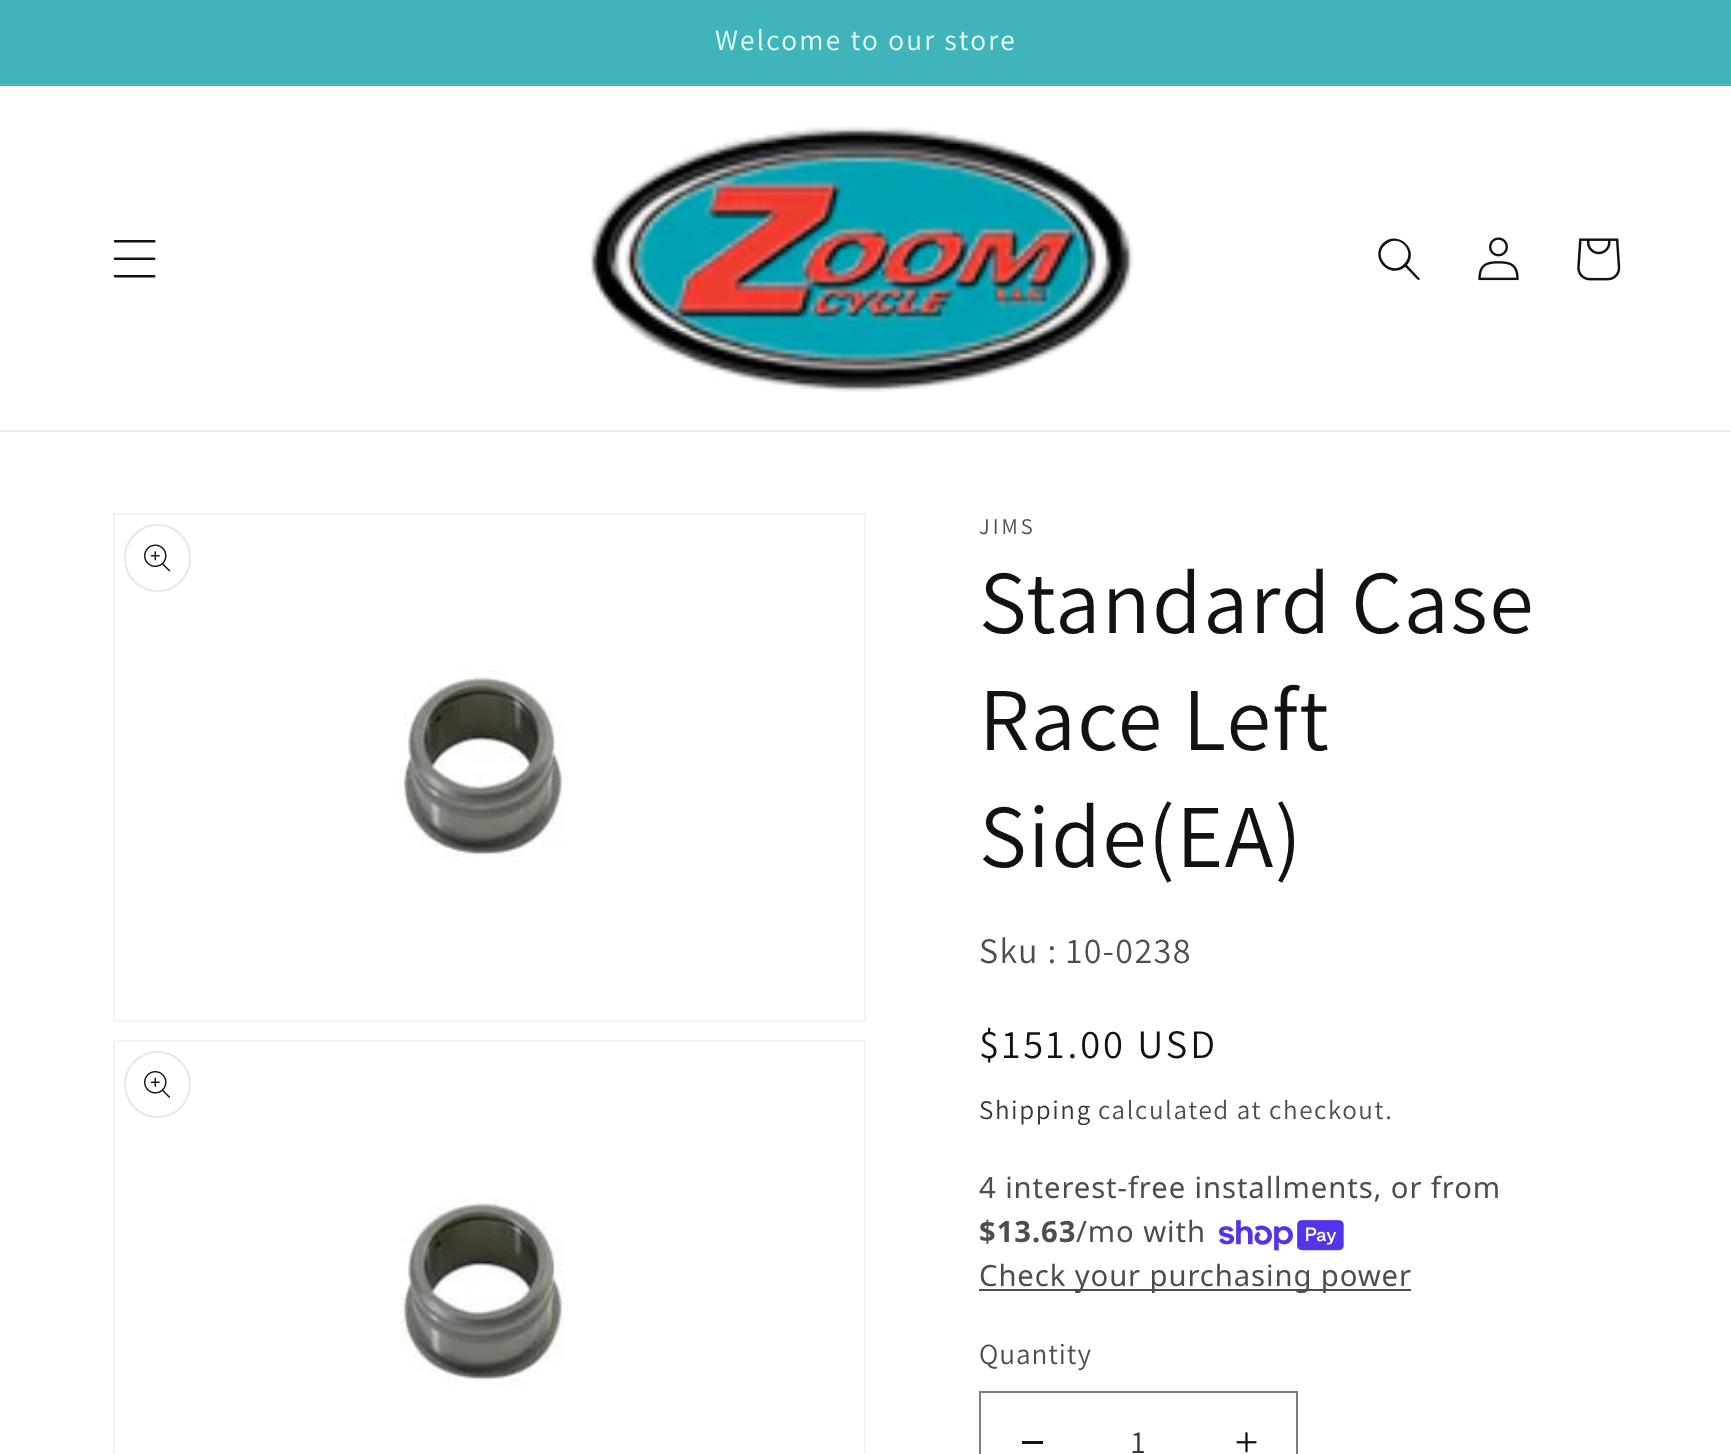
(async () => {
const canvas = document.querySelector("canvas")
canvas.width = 1731
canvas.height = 1454
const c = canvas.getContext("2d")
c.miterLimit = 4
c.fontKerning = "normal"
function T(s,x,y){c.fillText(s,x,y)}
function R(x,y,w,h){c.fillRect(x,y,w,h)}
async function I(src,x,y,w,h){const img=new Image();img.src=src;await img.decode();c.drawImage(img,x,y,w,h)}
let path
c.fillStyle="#fff"
R(0,0,1731,1454)
c.fillStyle="#3fb4ba"
R(0,0,1731,86)
c.fillStyle="#4dbabf"
R(0,83,1731,2)
c.letterSpacing="2.25px"
c.font="29.25px Assistant"
c.fillStyle="#e9fffc"
T("Welcome to our store",715,50)
c.fillStyle="#ececec"
R(0,430,1731,2)
await I("1.png",113,240,43,38)
await I("2.png",585,126,549,266)
c.fillStyle="#121212"
path = new Path2D("M1404 264c-12 13-32-7-19-19c13-13 32 6 19 19zm1 3c-16 13-36-10-22-24c15-14 37 7 24 22l13 14l-1 1c-1 1-12-12-14-13z")
c.fill(path,"evenodd")
await I("3.png",1478,237,41,44)
await I("4.png",1577,238,44,43)
c.strokeStyle="#f3f3f3"
c.lineWidth=2
c.strokeRect(114,514,751,507)
await I("5.png",399,670,166,192)
c.beginPath()
c.roundRect(125,525,65,66,32.5)
c.strokeStyle="#e7e7e7"
c.stroke()
await I("6.png",144,544,27,28)
c.strokeStyle="#f3f3f3"
c.strokeRect(114,1041,751,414)
await I("7.png",400,1195,165,192)
c.beginPath()
c.arc(157.5,1084.5,32.5,0,7)
c.strokeStyle="#e7e7e7"
c.stroke()
await I("8.png",144,1071,27,27)
c.letterSpacing="3px"
c.font="22.5px Assistant"
c.fillStyle="#4d4d4d"
T("JIMS",979,534)
c.letterSpacing="1.4px"
c.font="90px Assistant"
c.fillStyle="#121212"
T("Standard Case",979,633)
T("Race Left",979,750)
T("Side(EA)",979,867)
c.font="36px Assistant"
c.fillStyle="#4d4d4d"
T("Sku : 10-0238",979,963)
c.letterSpacing="3px"
c.font="40.5px Assistant"
c.fillStyle="#121212"
T("$151.00 USD",979,1058)
c.letterSpacing="1.6px"
c.font="27px Assistant"
c.fillStyle="#363636"
T("Shipping",979,1119)
c.fillStyle="#4d4d4d"
T("calculated at checkout.",1098,1119)
c.letterSpacing="0.9px"
c.font="29.25px Noto Sans"
T("4 interest-free installments, or from",979,1198)
c.font="bold 29.25px Noto Sans"
T("$13.63",979,1242)
c.font="29.25px Noto Sans"
T("/mo with",1076,1242)
await I("9.png",1219,1220,125,31)
R(979,1289,432,2)
T("Check your purchasing power",979,1286)
c.font="29.25px Assistant"
T("Quantity",979,1364)
c.fillStyle="#121212"
R(1022,1441,21,3)
await I("10.png",1236,1432,21,21)
c.strokeStyle="#7d7d7d"
c.strokeRect(980,1392,317,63)
c.letterSpacing="0px"
c.font="32px Assistant"
c.fillStyle="#363636"
T("1",1131,1453)
})()
